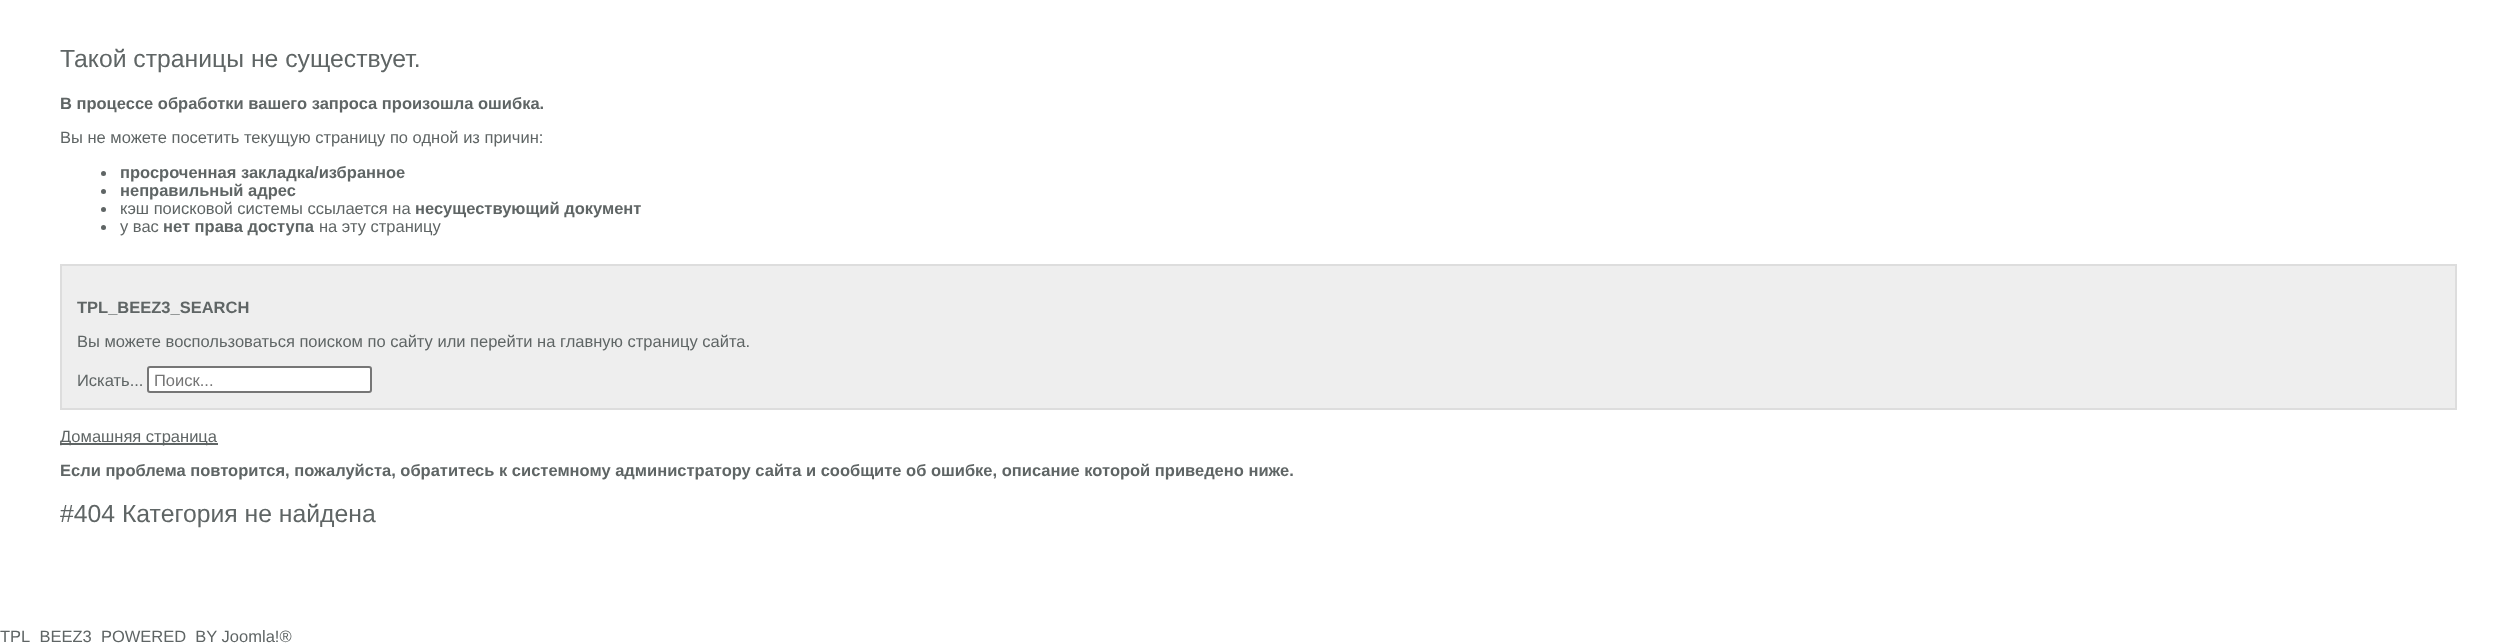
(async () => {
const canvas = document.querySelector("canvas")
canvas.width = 2517
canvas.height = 644
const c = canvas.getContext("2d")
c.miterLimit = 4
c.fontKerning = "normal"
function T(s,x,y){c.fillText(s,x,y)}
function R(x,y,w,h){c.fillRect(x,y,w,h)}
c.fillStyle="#fff"
R(0,0,2517,644)
c.font="24.75px Liberation Sans"
c.fillStyle="#5f6565"
T("Такой страницы не существует.",60,67)
c.font="bold 16.5px Liberation Sans"
T("В процессе обработки вашего запроса произошла ошибка.",60,109)
c.font="16.5px Liberation Sans"
T("Вы не можете посетить текущую страницу по одной из причин:",60,143)
c.beginPath()
c.arc(103.5,173.5,2.5,0,7)
c.fill()
c.font="bold 16.5px Liberation Sans"
T("просроченная закладка/избранное",120,178)
c.beginPath()
c.arc(103.5,191.5,2.5,0,7)
c.fill()
T("неправильный адрес",120,196)
c.beginPath()
c.arc(103.5,209.5,2.5,0,7)
c.fill()
c.font="16.5px Liberation Sans"
T("кэш поисковой системы ссылается на",120,214)
c.font="bold 16.5px Liberation Sans"
T("несуществующий документ",415,214)
c.beginPath()
c.arc(103.5,227.5,2.5,0,7)
c.fill()
c.font="16.5px Liberation Sans"
T("у вас",120,232)
c.font="bold 16.5px Liberation Sans"
T("нет права доступа",163,232)
c.font="16.5px Liberation Sans"
T("на эту страницу",319,232)
c.fillStyle="#eee"
c.beginPath()
c.rect(61,265,2395,144)
c.fill()
c.strokeStyle="#ddd"
c.lineWidth=2
c.stroke()
c.font="bold 16.5px Liberation Sans"
c.fillStyle="#5f6565"
T("TPL_BEEZ3_SEARCH",77,313)
c.font="16.5px Liberation Sans"
T("Вы можете воспользоваться поиском по сайту или перейти на главную страницу сайта.",77,347)
T("Искать...",77,386)
c.fillStyle="#fff"
c.beginPath()
c.roundRect(148,367,223,25,2)
c.fill()
c.strokeStyle="#767676"
c.stroke()
c.fillStyle="#757575"
T("Поиск...",154,386)
c.fillStyle="#5f6565"
R(60,443,158,2)
T("Домашняя страница",60,442)
c.font="bold 16.5px Liberation Sans"
T("Если проблема повторится, пожалуйста, обратитесь к системному администратору сайта и сообщите об ошибке, описание которой приведено ниже.",60,476)
c.font="24.75px Liberation Sans"
T("#404 Категория не найдена",60,522)
c.font="16.5px Liberation Sans"
T("TPL_BEEZ3_POWERED_BY Joomla!®",0,642)
})()
